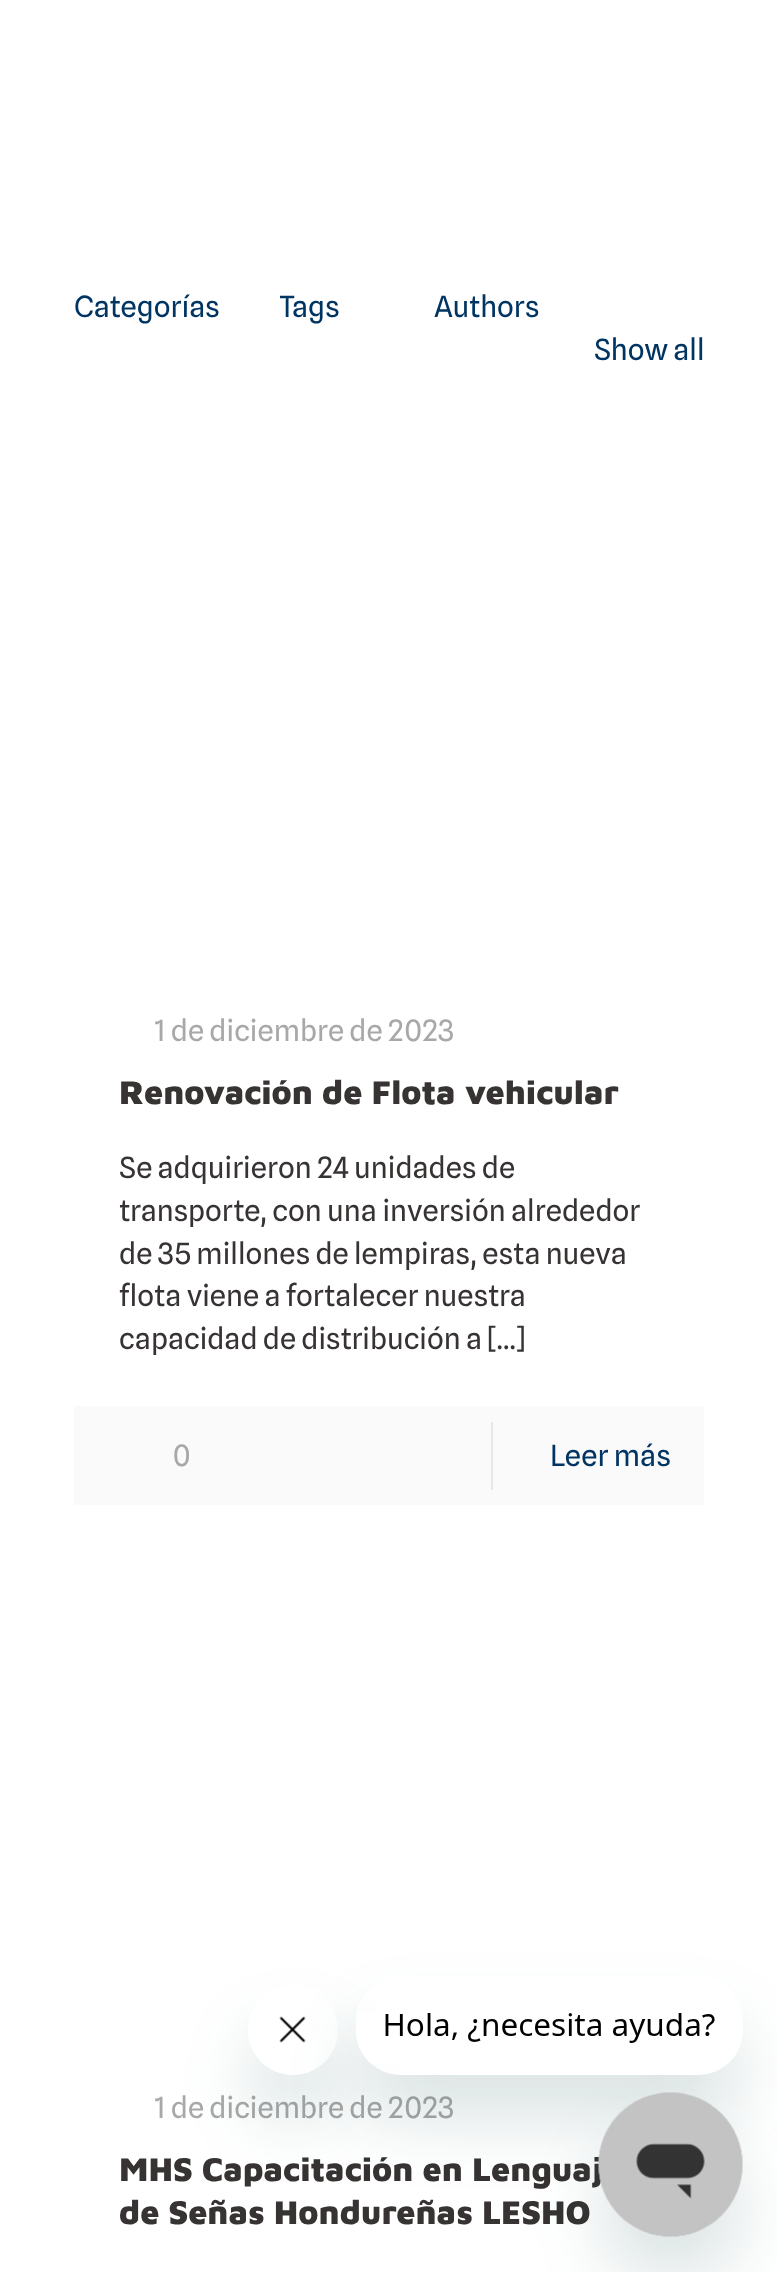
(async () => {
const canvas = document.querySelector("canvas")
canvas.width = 777
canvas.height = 2272
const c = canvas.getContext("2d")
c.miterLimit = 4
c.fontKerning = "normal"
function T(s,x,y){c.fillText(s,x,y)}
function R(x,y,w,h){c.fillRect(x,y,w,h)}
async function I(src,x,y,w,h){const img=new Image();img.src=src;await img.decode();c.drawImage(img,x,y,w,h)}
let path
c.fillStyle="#fff"
R(0,0,777,2272)
c.font="29.25px Spline Sans"
c.fillStyle="#003462"
T("Categorías",74,317)
T("Tags",279,317)
T("Authors",434,317)
T("Show all",594,360)
c.fillStyle="#a8a8a8"
T("1 de diciembre de 2023",154,1041)
c.font="900 33.75px Maven Pro"
c.fillStyle="#363332"
T("Renovación de Flota vehicular",119,1104)
c.font="29.25px Spline Sans"
T("Se adquirieron 24 unidades de",119,1178)
T("transporte, con una inversión alrededor",119,1221)
T("de 35 millones de lempiras, esta nueva",119,1264)
T("flota viene a fortalecer nuestra",119,1306)
T("capacidad de distribución a […]",119,1349)
c.fillStyle="#fafafa"
R(74,1406,630,99)
c.fillStyle="#a8a8a8"
T("0",173,1466)
c.fillStyle="#e6e6e6"
R(491,1422,2,68)
c.fillStyle="#003462"
T("Leer más",550,1466)
c.fillStyle="#a8a8a8"
T("1 de diciembre de 2023",154,2118)
c.font="900 33.75px Maven Pro"
c.fillStyle="#363332"
T("MHS Capacitación en Lenguaj",119,2181)
T("de Señas Hondureñas LESHO",119,2224)
c.save()
path = new Path2D("M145 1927h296v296h-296zm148 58c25 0 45 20 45 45c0 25-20 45-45 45c-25 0-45-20-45-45c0-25 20-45 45-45z")
c.clip(path,"evenodd")
c.fillStyle="#17494d26"
c.filter="blur(34px)"
c.beginPath()
c.roundRect(248,2030,90,90,45)
c.fill()
c.filter="none"
c.restore()
await I("2.png",276,2016,30,59)
c.save()
path = new Path2D("M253 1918h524v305h-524zm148 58h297c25 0 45 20 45 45v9c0 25-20 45-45 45h-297c-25 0-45-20-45-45v-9c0-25 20-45 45-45z")
c.clip(path,"evenodd")
c.fillStyle="#17494d26"
c.filter="blur(34px)"
c.beginPath()
c.roundRect(356,2021,387,99,45)
c.fill()
c.filter="none"
c.restore()
await I("1.png",356,2013,359,51)
c.fillStyle="#17494d26"
c.filter="blur(34px)"
c.beginPath()
c.roundRect(599,2138,144,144,72)
c.fill()
c.filter="none"
await I("3.png",598,2092,145,145)
})()
